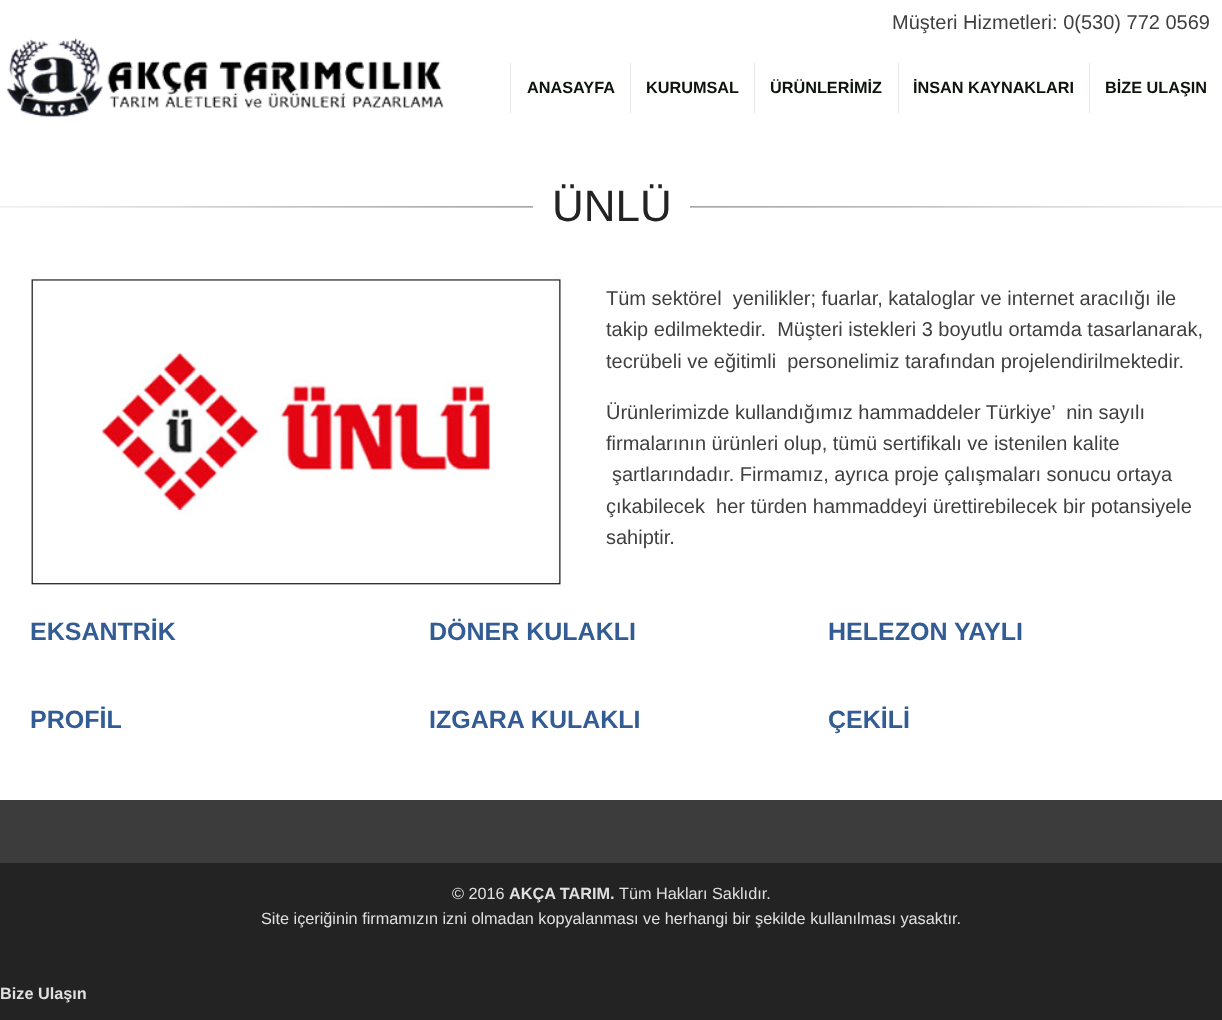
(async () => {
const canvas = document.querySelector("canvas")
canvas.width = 1222
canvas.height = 1020
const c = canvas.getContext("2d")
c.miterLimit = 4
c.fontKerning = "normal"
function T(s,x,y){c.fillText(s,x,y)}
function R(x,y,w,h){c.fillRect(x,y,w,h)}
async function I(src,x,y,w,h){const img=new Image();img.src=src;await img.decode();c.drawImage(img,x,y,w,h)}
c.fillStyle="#fff"
R(0,0,1222,1020)
c.font="20px Liberation Sans"
c.fillStyle="#3f3f3f"
T("Müşteri Hizmetleri: 0(530) 772 0569",892,29)
await I("1.png",6,38,438,80)
c.fillStyle="#e5e5e5"
R(510,63,1,50)
c.font="bold 16.25px Liberation Sans"
c.fillStyle="#0d130d"
T("ANASAYFA",527,93)
c.fillStyle="#e5e5e5"
R(630,63,1,50)
c.fillStyle="#0d130d"
T("KURUMSAL",646,93)
c.fillStyle="#e5e5e5"
R(754,63,1,50)
c.fillStyle="#0d130d"
T("ÜRÜNLERİMİZ",770,93)
c.fillStyle="#e5e5e5"
R(898,63,1,50)
c.fillStyle="#0d130d"
T("İNSAN KAYNAKLARI",913,93)
c.fillStyle="#e5e5e5"
R(1089,63,1,50)
c.fillStyle="#0d130d"
T("BİZE ULAŞIN",1105,93)
await I("2.png",0,206,1222,2)
c.fillStyle="#fff"
R(533,206,157,2)
c.font="44px Liberation Sans"
c.fillStyle="#232323"
T("ÜNLÜ",552,221)
await I("3.png",30,272,532,314)
c.font="20px Liberation Sans"
c.fillStyle="#3f3f3f"
T("Tüm sektörel  yenilikler; fuarlar, kataloglar ve internet aracılığı ile",606,305)
T("takip edilmektedir.  Müşteri istekleri 3 boyutlu ortamda tasarlanarak,",606,336)
T("tecrübeli ve eğitimli  personelimiz tarafından projelendirilmektedir.",606,368)
T("Ürünlerimizde kullandığımız hammaddeler Türkiye’  nin sayılı",606,419)
T("firmalarının ürünleri olup, tümü sertifikalı ve istenilen kalite",606,450)
T("şartlarındadır. Firmamız, ayrıca proje çalışmaları sonucu ortaya",612,481)
T("çıkabilecek  her türden hammaddeyi ürettirebilecek bir potansiyele",606,513)
T("sahiptir.",606,544)
c.font="bold 25px Liberation Sans"
c.fillStyle="#325c93"
T("EKSANTRİK",30,640)
T("DÖNER KULAKLI",429,640)
T("HELEZON YAYLI",828,640)
T("PROFİL",30,728)
T("IZGARA KULAKLI",429,728)
T("ÇEKİLİ",828,728)
c.fillStyle="#3c3c3c"
R(0,800,1222,63)
c.fillStyle="#232323"
R(0,863,1222,157)
c.font="16.25px Liberation Sans"
c.fillStyle="#e0e0e0"
T("© 2016",452,899)
c.font="bold 16.25px Liberation Sans"
T("AKÇA TARIM.",509,899)
c.font="16.25px Liberation Sans"
T("Tüm Hakları Saklıdır.",619,899)
T("Site içeriğinin firmamızın izni olmadan kopyalanması ve herhangi bir şekilde kullanılması yasaktır.",261,924)
c.font="bold 16.25px Liberation Sans"
T("Bize Ulaşın",0,999)
})()
